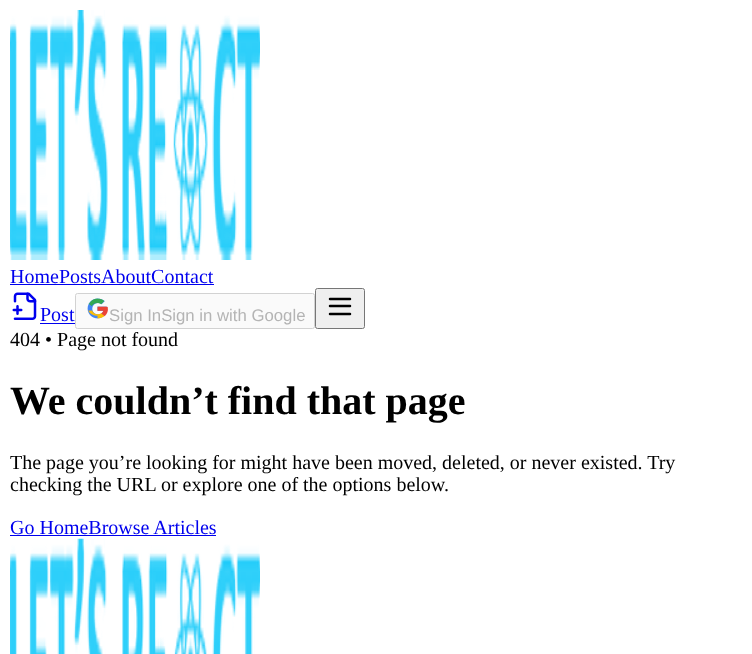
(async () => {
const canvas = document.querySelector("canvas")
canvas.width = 752
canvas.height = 654
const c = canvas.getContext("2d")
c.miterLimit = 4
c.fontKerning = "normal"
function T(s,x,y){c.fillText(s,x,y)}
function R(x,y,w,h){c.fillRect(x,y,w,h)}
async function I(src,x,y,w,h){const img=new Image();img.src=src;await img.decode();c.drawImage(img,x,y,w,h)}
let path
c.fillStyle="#fff"
R(0,0,752,654)
await I("1.png",10,10,250,250)
c.font="20px Liberation Serif"
c.fillStyle="#00e"
T("HomePostsAboutContact",10,283)
R(10,284,204,1)
await I("2.png",12,292,25,28)
T("Post",40,321)
R(40,323,35,1)
c.fillStyle="#fafafa"
c.beginPath()
c.roundRect(75.5,293.5,239,35,2)
c.fill()
c.strokeStyle="#d2d2d2"
c.stroke()
await I("3.png",87,298,21,21)
c.font="16.75px Liberation Sans"
c.fillStyle="#b4b4b4"
T("Sign InSign in with Google",109,321)
c.fillStyle="#efefef"
c.beginPath()
c.roundRect(315.5,288.5,49,40,2)
c.fill()
c.strokeStyle="#767676"
c.stroke()
path = new Path2D("M330 306h20m-20-7h20m-20 15h20")
c.strokeStyle="#000"
c.lineWidth=2.5
c.lineCap="round"
c.lineJoin="round"
c.stroke(path)
c.font="20px Liberation Serif"
c.fillStyle="#000"
T("404 • Page not found",10,346)
c.font="bold 40px Liberation Serif"
T("We couldn’t find that page",10,414)
c.font="20px Liberation Serif"
T("The page you’re looking for might have been moved, deleted, or never existed. Try",10,469)
T("checking the URL or explore one of the options below.",10,491)
c.fillStyle="#00e"
T("Go HomeBrowse Articles",10,534)
R(10,535,206,1)
await I("4.png",10,538,250,116)
})()
